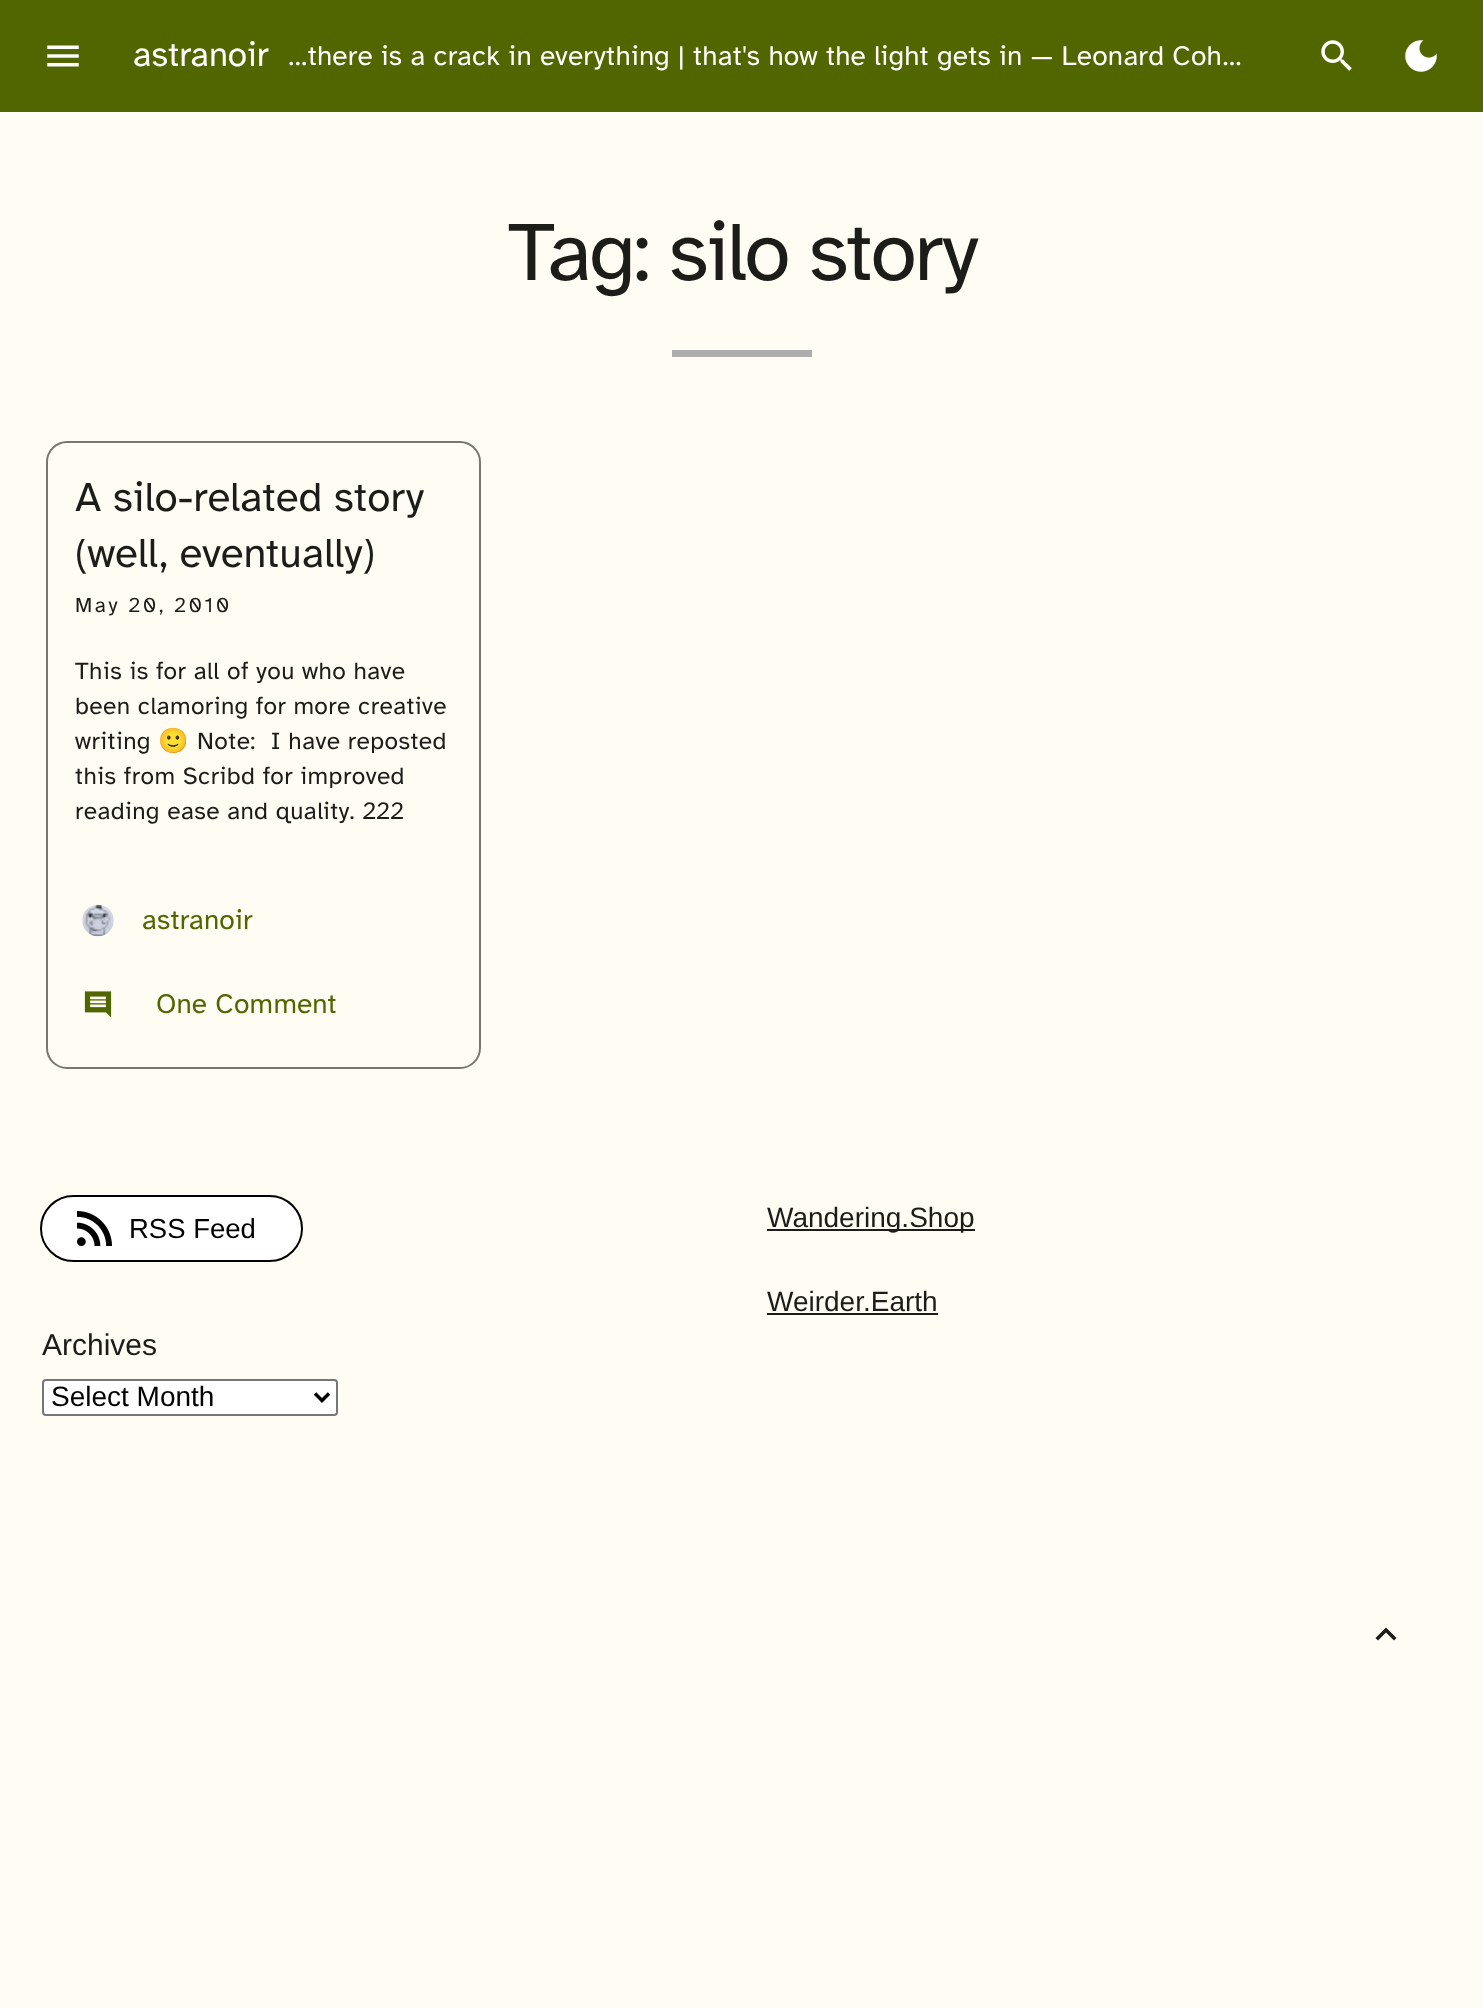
(async () => {
const canvas = document.querySelector("canvas")
canvas.width = 1483
canvas.height = 2008
const c = canvas.getContext("2d")
c.miterLimit = 4
c.fontKerning = "normal"
function T(s,x,y){c.fillText(s,x,y)}
function R(x,y,w,h){c.fillRect(x,y,w,h)}
function Q(x,y,w,h,r){c.beginPath();c.roundRect(x,y,w,h,r);c.fill()}
async function I(src,x,y,w,h){const img=new Image();img.src=src;await img.decode();c.drawImage(img,x,y,w,h)}
let path
c.fillStyle="#fefcf3"
R(0,0,1483,2008)
c.fillStyle="#526600"
R(0,0,1483,112)
await I("1.png",47,45,32,22)
c.font="35px Atkinson Hyperlegible"
c.fillStyle="#fff"
T("astranoir",133,66)
c.letterSpacing="0.25px"
c.font="28px Atkinson Hyperlegible"
T("…there is a crack in everything | that's how the light gets in — Leonard Coh…",288,65)
await I("2.png",1321,40,31,31)
await I("3.png",1405,40,32,32)
c.letterSpacing="-2.6px"
c.font="84px Atkinson Hyperlegible"
c.fillStyle="#1c1c18"
T("Tag: silo story",508,280)
c.fillStyle="#adadad"
R(672,350,140,7)
c.beginPath()
c.roundRect(47,442,433,626,20)
c.strokeStyle="#77786b"
c.lineWidth=2
c.stroke()
c.letterSpacing="0px"
c.font="42px Atkinson Hyperlegible"
c.fillStyle="#1c1c18"
T("A silo-related story",75,511)
T("(well, eventually)",75,567)
c.letterSpacing="2.6px"
c.font="21px Atkinson Hyperlegible"
T("May 20, 2010",75,612)
c.letterSpacing="0.45px"
c.font="24.5px Atkinson Hyperlegible"
T("This is for all of you who have",75,679)
T("been clamoring for more creative",75,714)
T("writing",75,749)
c.font="24.5px Noto Color Emoji"
T("🙂",158,749)
c.font="24.5px Atkinson Hyperlegible"
T("Note:  I have reposted",197,749)
T("this from Scribd for improved",75,784)
T("reading ease and quality. 222",75,819)
await I("4.png",82,904,32,33)
c.letterSpacing="0.25px"
c.font="28px Atkinson Hyperlegible"
c.fillStyle="#526600"
T("astranoir",142,929)
await I("5.png",84,991,28,27)
T("One Comment",156,1013)
c.fillStyle="#fff"
Q(42,1197,259,63,31.5)
c.beginPath()
c.roundRect(41,1196,261,65,32.5)
c.strokeStyle="#000"
c.stroke()
await I("6.png",77,1211,35,35)
c.letterSpacing="0px"
c.font="27.5px Liberation Sans"
c.fillStyle="#000"
T("RSS Feed",129,1238)
c.font="30px Liberation Sans"
c.fillStyle="#1c1c18"
T("Archives",42,1355)
c.fillStyle="#fff"
c.beginPath()
c.roundRect(43,1380,294,35,3)
c.fill()
c.strokeStyle="#767676"
c.stroke()
path = new Path2D("M315 1393.5l7 7l7-7")
c.strokeStyle="#000"
c.lineWidth=3.5
c.stroke(path)
c.font="28px Liberation Sans"
c.fillStyle="#000"
T("Select Month",51,1406)
c.fillStyle="#1c1c18"
R(767,1229,208,2)
T("Wandering.Shop",767,1227)
T("Weirder.Earth",767,1311)
R(767,1313,171,2)
path = new Path2D("M1386 1627.5l-10.5 10.5l2.5 2.5l8-8l8 8l2.5-2.5z")
c.fill(path)
})()
